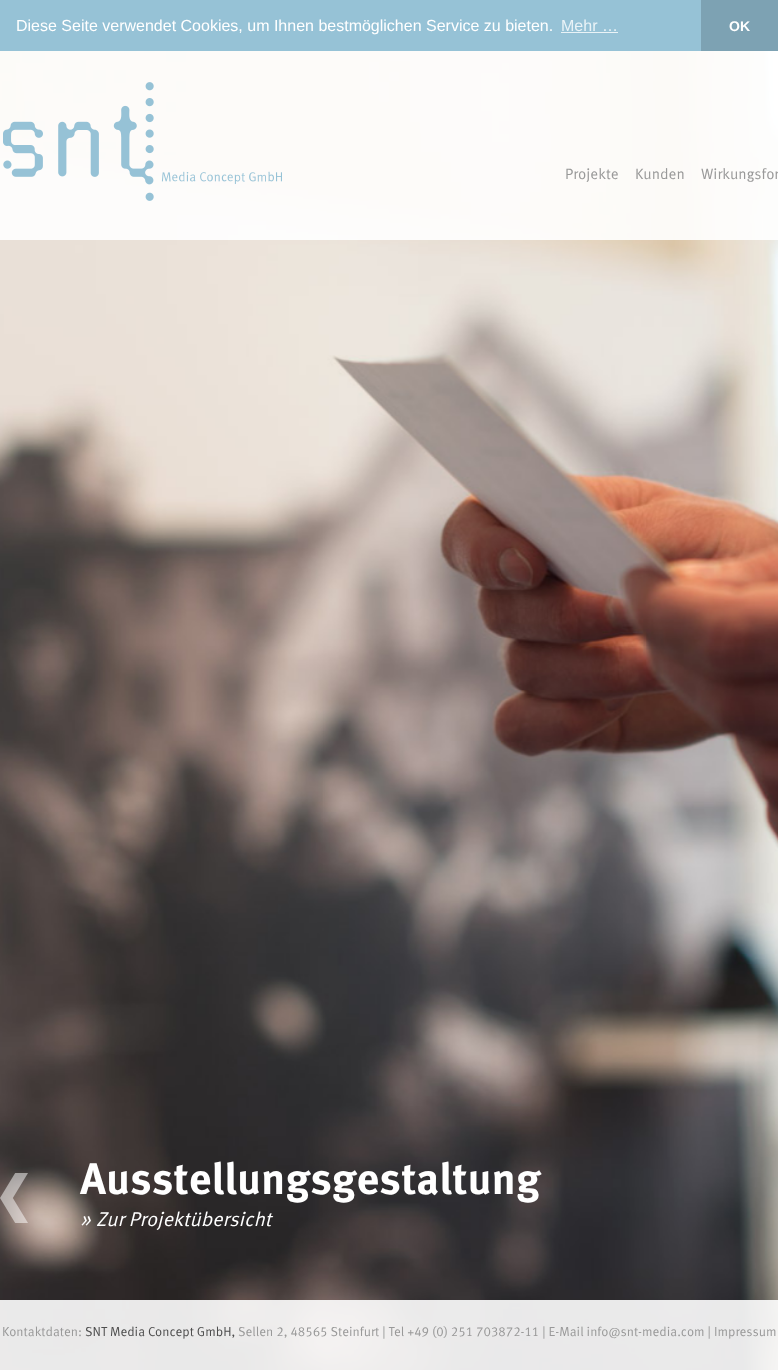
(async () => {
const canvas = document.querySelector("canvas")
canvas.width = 778
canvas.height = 1370
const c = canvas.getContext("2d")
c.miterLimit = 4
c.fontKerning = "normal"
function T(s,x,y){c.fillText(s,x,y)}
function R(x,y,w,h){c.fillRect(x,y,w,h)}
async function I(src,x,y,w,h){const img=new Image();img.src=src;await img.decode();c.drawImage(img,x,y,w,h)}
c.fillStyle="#fff"
R(0,0,778,1370)
c.fillStyle="#96c2d6"
R(0,0,701,51)
c.font="16px Liberation Sans"
c.fillStyle="#fff"
T("Diese Seite verwendet Cookies, um Ihnen bestmöglichen Service zu bieten.",16,31)
c.fillStyle="#eaf3f7"
T("Mehr …",561,31)
R(561,32,57,1)
c.fillStyle="#7da2b3"
R(701,0,77,51)
c.font="bold 14px Liberation Sans"
c.fillStyle="#fff"
T("OK",729,31)
await I("1.png",0,51,778,1319)
c.fillStyle="#ffffffe6"
R(0,51,778,189)
await I("2.png",3,82,279,119)
c.font="15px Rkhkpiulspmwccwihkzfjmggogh"
c.fillStyle="#999"
T("Projekte",565,179)
T("Kunden",635,179)
T("Wirkungsfor",701,179)
await I("3.png",0,1173,28,50)
c.font="bold 44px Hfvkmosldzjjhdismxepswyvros"
c.fillStyle="#fff"
T("Ausstellungsgestaltung",80,1194)
c.font="italic 22px Rkhkpiulspmwccwihkzfjmggogh"
T("»",80,1226)
c.font="italic 20px Rkhkpiulspmwccwihkzfjmggogh"
T("Zur Projektübersicht",96,1226)
c.fillStyle="#ffffffe6"
R(0,1300,778,70)
c.font="13px Rkhkpiulspmwccwihkzfjmggogh"
c.fillStyle="#999"
T("Kontaktdaten:",2,1336)
c.fillStyle="#4d4d4d"
T("SNT Media Concept GmbH,",85,1336)
c.fillStyle="#999"
T("Sellen 2, 48565 Steinfurt | Tel +49 (0) 251 703872-11 | E-Mail info@snt-media.com | Impressum",238,1336)
})()
